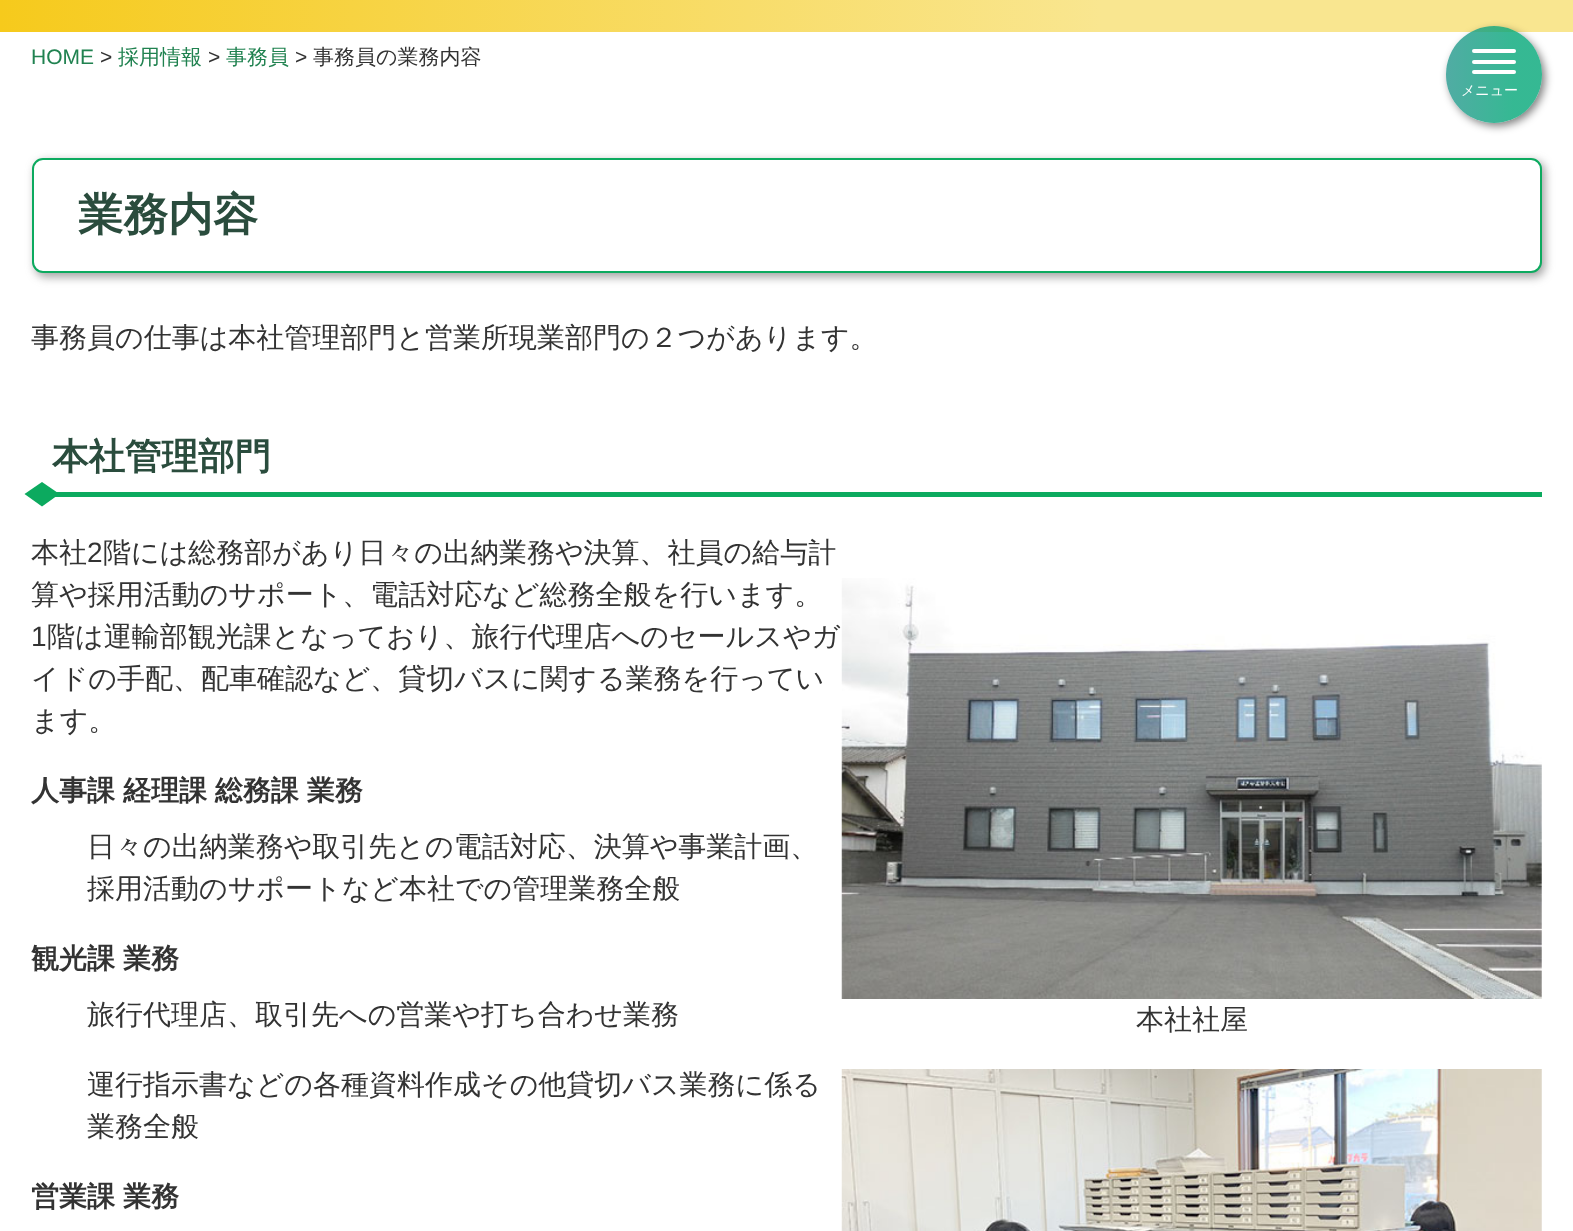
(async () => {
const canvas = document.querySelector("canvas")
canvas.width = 1573
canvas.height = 1231
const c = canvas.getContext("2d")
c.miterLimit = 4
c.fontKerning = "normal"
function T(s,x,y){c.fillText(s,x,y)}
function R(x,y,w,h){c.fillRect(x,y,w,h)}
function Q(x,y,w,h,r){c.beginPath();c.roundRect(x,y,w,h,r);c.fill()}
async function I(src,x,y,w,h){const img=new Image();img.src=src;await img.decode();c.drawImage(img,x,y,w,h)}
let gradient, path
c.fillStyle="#fff"
R(0,0,1573,1231)
gradient = c.createLinearGradient(0,-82,1573,-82)
gradient.addColorStop(0,"#f6ca1c")
gradient.addColorStop(.7,"#f9e690")
c.fillStyle = gradient
R(0,0,1573,32)
c.font="21px Liberation Sans"
c.fillStyle="#208250"
T("HOME",31,64)
c.fillStyle="#333"
T(">",100,64)
c.font="500 21px WenQuanYi Zen Hei"
c.fillStyle="#208250"
T("採用情報",118,64)
c.font="21px Liberation Sans"
c.fillStyle="#333"
T(">",208,64)
c.font="500 21px WenQuanYi Zen Hei"
c.fillStyle="#208250"
T("事務員",226,64)
c.font="21px Liberation Sans"
c.fillStyle="#333"
T(">",295,64)
c.font="500 21px WenQuanYi Zen Hei"
T("事務員の業務内容",313,64)
c.fillStyle="#64646499"
c.filter="blur(5px)"
c.beginPath()
c.roundRect(35,161,1510,116,11)
c.fill()
c.filter="none"
c.fillStyle="#fff"
c.beginPath()
c.roundRect(33,159,1508,113,10)
c.fill()
c.strokeStyle="#0caa5f"
c.lineWidth=2
c.stroke()
c.font="bold 45px WenQuanYi Zen Hei"
c.fillStyle="#2a4c3d"
T("業務内容",78,230)
c.font="500 28px WenQuanYi Zen Hei"
c.fillStyle="#333"
T("事務員の仕事は本社管理部門と営業所現業部門の２つがあります。",31,347)
c.fillStyle="#0caa5f"
R(55,492,1487,5)
c.font="bold 36.5px WenQuanYi Zen Hei"
c.fillStyle="#2a4c3d"
T("本社管理部門",52,469)
c.fillStyle="#0caa5f"
path = new Path2D("M42 482l17.5 12l-17.5 12.5l-17.5-12.5z")
c.fill(path)
c.font="500 28px WenQuanYi Zen Hei"
c.fillStyle="#333"
T("本社",31,562)
c.font="28px Liberation Sans"
T("2",87,562)
c.font="500 28px WenQuanYi Zen Hei"
T("階には総務部があり日々の出納業務や決算、社員の給与計",103,562)
T("算や採用活動のサポート、電話対応など総務全般を行います。",31,604)
c.font="28px Liberation Sans"
T("1",31,646)
c.font="500 28px WenQuanYi Zen Hei"
T("階は運輸部観光課となっており、旅行代理店へのセールスやガ",47,646)
T("イドの手配、配車確認など、貸切バスに関する業務を行ってい",31,688)
T("ます。",31,730)
c.wordSpacing="-0.5px"
c.font="bold 28px WenQuanYi Zen Hei"
T("人事課 経理課 総務課 業務",31,800)
c.wordSpacing="0px"
c.font="500 28px WenQuanYi Zen Hei"
T("日々の出納業務や取引先との電話対応、決算や事業計画、",87,856)
T("採用活動のサポートなど本社での管理業務全般",87,898)
c.wordSpacing="-0.5px"
c.font="bold 28px WenQuanYi Zen Hei"
T("観光課 業務",31,968)
c.wordSpacing="0px"
c.font="500 28px WenQuanYi Zen Hei"
T("旅行代理店、取引先への営業や打ち合わせ業務",87,1024)
T("運行指示書などの各種資料作成その他貸切バス業務に係る",87,1094)
T("業務全般",87,1136)
c.wordSpacing="-0.5px"
c.font="bold 28px WenQuanYi Zen Hei"
T("営業課 業務",31,1206)
await I("1.png",841,578,701,421)
c.wordSpacing="0px"
c.font="500 28px WenQuanYi Zen Hei"
T("本社社屋",1136,1029)
await I("2.png",841,1069,701,162)
c.save()
path = new Path2D("M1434 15h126v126h-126zm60 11c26.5 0 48 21.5 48 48v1c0 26.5-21.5 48-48 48c-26.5 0-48-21.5-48-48v-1c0-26.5 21.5-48 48-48z")
c.clip(path,"evenodd")
c.fillStyle="#00000080"
c.filter="blur(4.5px)"
c.beginPath()
c.roundRect(1449,30,96,96,48)
c.fill()
c.filter="none"
c.restore()
gradient = c.createLinearGradient(1446,74,1542,74)
gradient.addColorStop(0,"#25978dcc")
gradient.addColorStop(.7,"#03a778cc")
c.fillStyle = gradient
Q(1446,26,96,97,48)
c.fillStyle="#fff"
Q(1472,49,44,4,2)
Q(1472,60,44,4,2)
Q(1472,70,44,4,2)
c.font="500 14px WenQuanYi Zen Hei"
T("メニュー",1461,95)
})()
